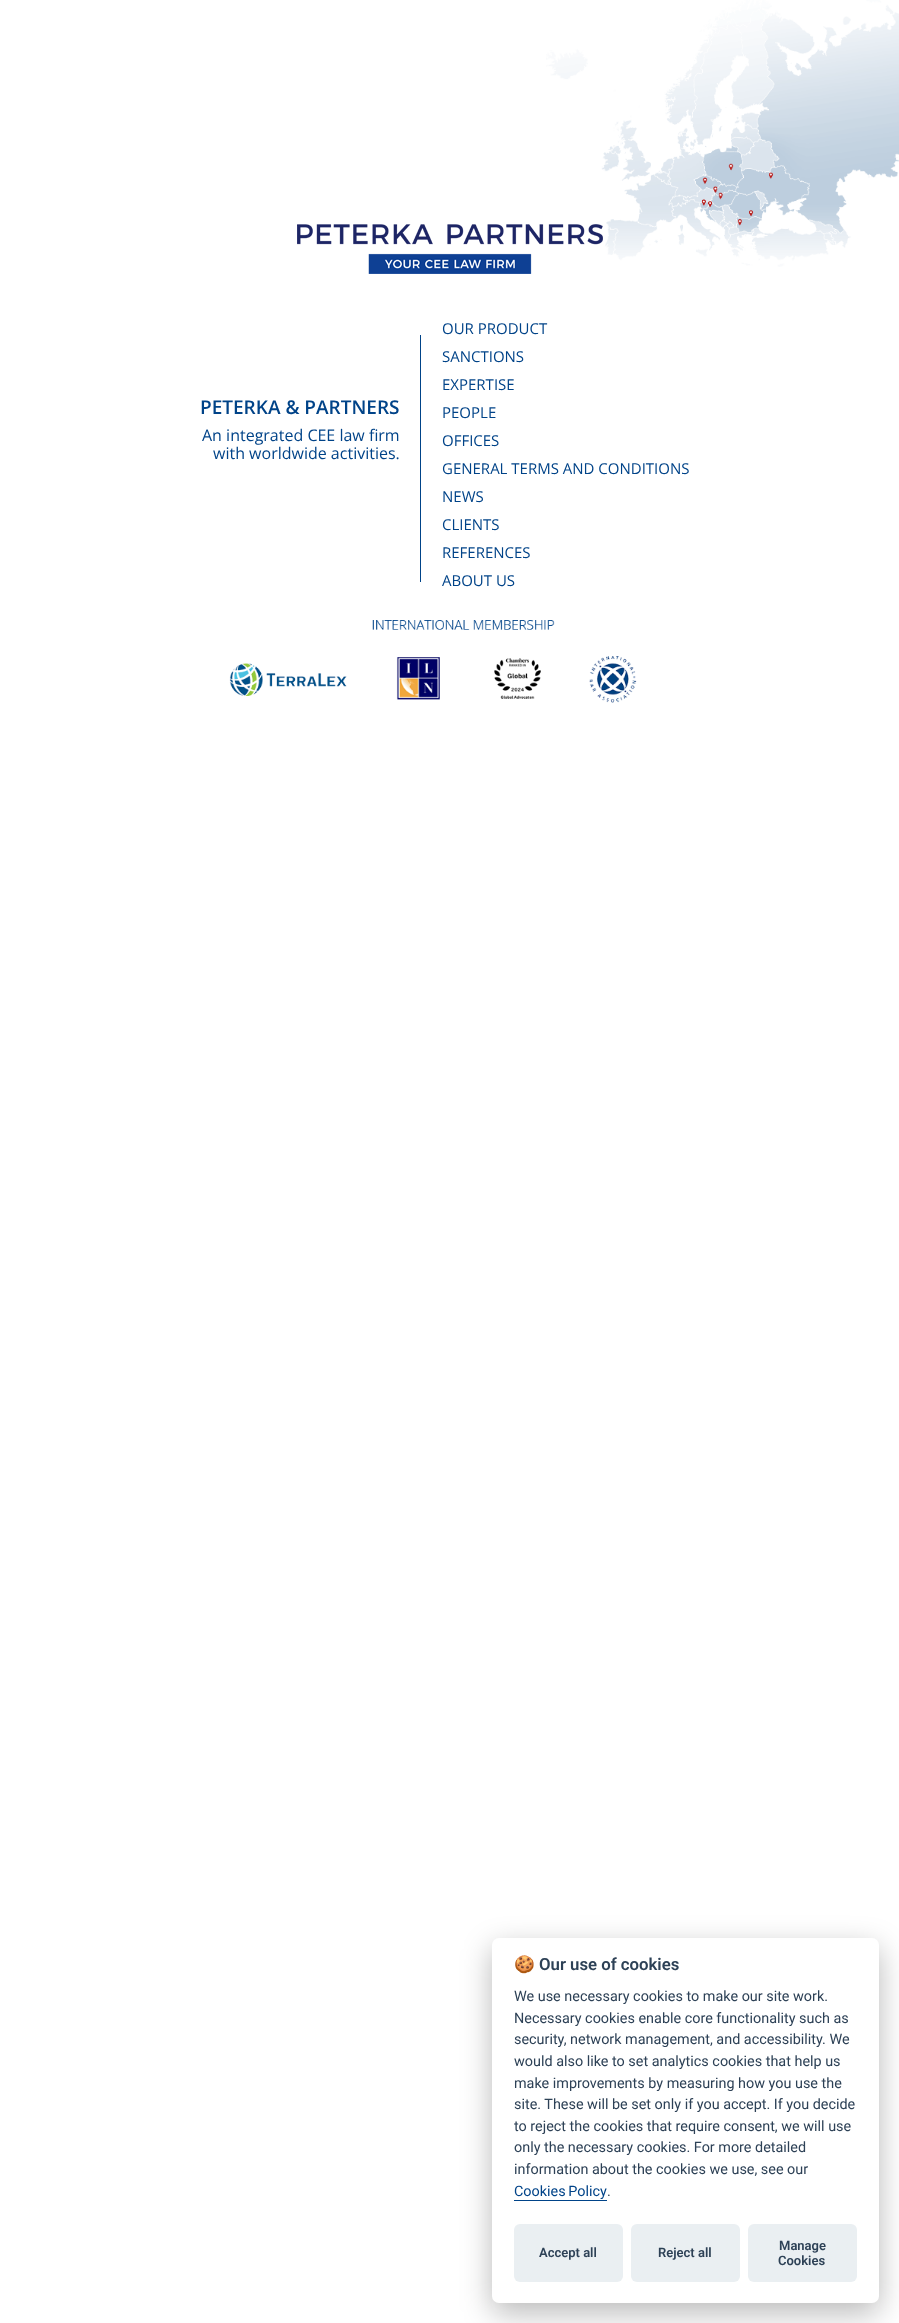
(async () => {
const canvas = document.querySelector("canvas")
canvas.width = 899
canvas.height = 2323
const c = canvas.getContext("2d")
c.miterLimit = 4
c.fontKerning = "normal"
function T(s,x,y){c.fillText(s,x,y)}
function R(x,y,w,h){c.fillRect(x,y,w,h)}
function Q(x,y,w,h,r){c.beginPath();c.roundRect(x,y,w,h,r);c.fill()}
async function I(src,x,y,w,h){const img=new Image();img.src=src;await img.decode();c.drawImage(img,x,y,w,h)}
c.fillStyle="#fff"
R(0,0,899,2323)
await I("2.png",546,0,353,267)
await I("1.png",297,224,306,50)
c.font="600 19px Open Sans"
c.fillStyle="#004388"
T("PETERKA & PARTNERS",200,414)
c.font="16px Open Sans"
T("An integrated CEE law firm",202,441)
T("with worldwide activities.",213,459)
R(420,335,1,247)
c.font="15px Open Sans"
T("OUR PRODUCT",442,334)
T("SANCTIONS",442,362)
T("EXPERTISE",442,390)
T("PEOPLE",442,418)
T("OFFICES",442,446)
T("GENERAL TERMS AND CONDITIONS",442,474)
T("NEWS",442,502)
T("CLIENTS",442,530)
T("REFERENCES",442,558)
T("ABOUT US",442,586)
await I("3.png",229,620,408,83)
c.fillStyle="#02020347"
c.filter="blur(15px)"
c.beginPath()
c.roundRect(492,1948,387,365,7)
c.fill()
c.filter="none"
c.fillStyle="#fff"
Q(492,1938,387,365,7)
c.font="bold 16.75px Noto Color Emoji"
c.fillStyle="#2d4156"
T("🍪",514,1970)
c.font="600 16.75px Roboto"
T("Our use of cookies",539,1970)
c.font="14.4px Roboto"
T("We use necessary cookies to make our site work.",514,2001)
T("Necessary cookies enable core functionality such as",514,2023)
T("security, network management, and accessibility. We",514,2044)
T("would also like to set analytics cookies that help us",514,2066)
T("make improvements by measuring how you use the",514,2088)
T("site. These will be set only if you accept. If you decide",514,2109)
T("to reject the cookies that require consent, we will use",514,2131)
T("only the necessary cookies. For more detailed",514,2152)
T("information about the cookies we use, see our",514,2174)
c.wordSpacing="-1px"
c.fillStyle="#004388"
T("Cookies Policy",514,2196)
R(514,2200,93,1)
c.wordSpacing="0px"
c.fillStyle="#2d4156"
T(".",607,2196)
c.fillStyle="#eaeff2"
Q(514,2224,109,58,6)
c.font="600 13px Roboto"
c.fillStyle="#2d4156"
T("Accept all",539,2257)
c.fillStyle="#eaeff2"
Q(631,2224,109,58,6)
c.fillStyle="#2d4156"
T("Reject all",658,2257)
c.fillStyle="#eaeff2"
Q(748,2224,109,58,6)
c.fillStyle="#2d4156"
T("Manage",779,2250)
T("Cookies",778,2265)
})()
